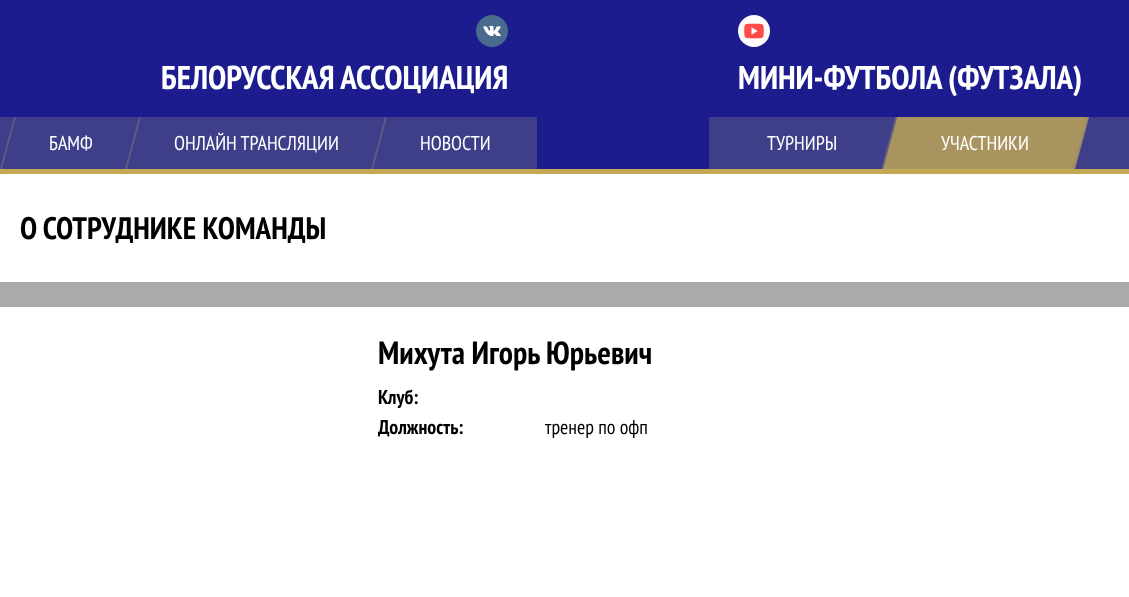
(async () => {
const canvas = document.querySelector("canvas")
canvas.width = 1129
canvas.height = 597
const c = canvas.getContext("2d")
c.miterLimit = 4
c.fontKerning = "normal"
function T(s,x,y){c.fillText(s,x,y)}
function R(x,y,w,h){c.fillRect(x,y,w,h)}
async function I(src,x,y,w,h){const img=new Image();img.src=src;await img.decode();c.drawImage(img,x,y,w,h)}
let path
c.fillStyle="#aaa"
R(0,0,1129,597)
c.fillStyle="#1c1c8e"
R(0,0,1129,117)
c.fillStyle="#4a6a8e"
c.beginPath()
c.arc(492,31,16,0,7)
c.fill()
await I("1.png",483,25,18,12)
c.fillStyle="#fdfdfe"
c.beginPath()
c.arc(754,31,16,0,7)
c.fill()
await I("2.png",744,23,20,16)
c.font="bold 33px PT Sans Narrow"
c.fillStyle="#fff"
T("БЕЛОРУССКАЯ АССОЦИАЦИЯ",161,89)
T("МИНИ-ФУТБОЛА (ФУТЗАЛА)",738,89)
c.fillStyle="#1c1c8e"
R(537,117,172,52)
c.fillStyle="#3e3e89"
R(0,117,537,52)
c.fillStyle="#5c5c85"
path = new Path2D("M14 117h2l-14 52h-2z")
c.fill(path)
c.font="20px PT Sans Narrow"
c.fillStyle="#fff"
T("БАМФ",49,150)
c.fillStyle="#5c5c85"
path = new Path2D("M139 117h2l-14 52h-2z")
c.fill(path)
c.fillStyle="#fff"
T("ОНЛАЙН ТРАНСЛЯЦИИ",174,150)
c.fillStyle="#5c5c85"
path = new Path2D("M385 117h2l-14 52h-2z")
c.fill(path)
c.fillStyle="#fff"
T("НОВОСТИ",420,150)
c.fillStyle="#3e3e89"
R(709,117,420,52)
c.fillStyle="#5c5c85"
path = new Path2D("M895 117h2l-14 52h-2z")
c.fill(path)
c.fillStyle="#fff"
T("ТУРНИРЫ",767,150)
c.fillStyle="#c4a954cc"
path = new Path2D("M897 117h192l-14 52h-192z")
c.fill(path)
c.fillStyle="#80808073"
path = new Path2D("M1087 117h2l-14 52h-2z")
c.fill(path)
c.fillStyle="#fff"
T("УЧАСТНИКИ",941,150)
c.fillStyle="#c4a954"
R(0,169,1129,5)
c.fillStyle="#fff"
R(0,174,1129,108)
c.font="bold 31px PT Sans Narrow"
c.fillStyle="#000"
T("О СОТРУДНИКЕ КОМАНДЫ",20,239)
c.fillStyle="#fff"
R(0,307,1129,290)
c.font="bold 32px PT Sans Narrow"
c.fillStyle="#000"
T("Михута Игорь",378,364)
T("Юрьевич",546,364)
c.font="bold 20px PT Sans Narrow"
T("Клуб:",378,404)
T("Должность:",378,434)
c.font="20px PT Sans Narrow"
T("тренер по офп",545,434)
})()
